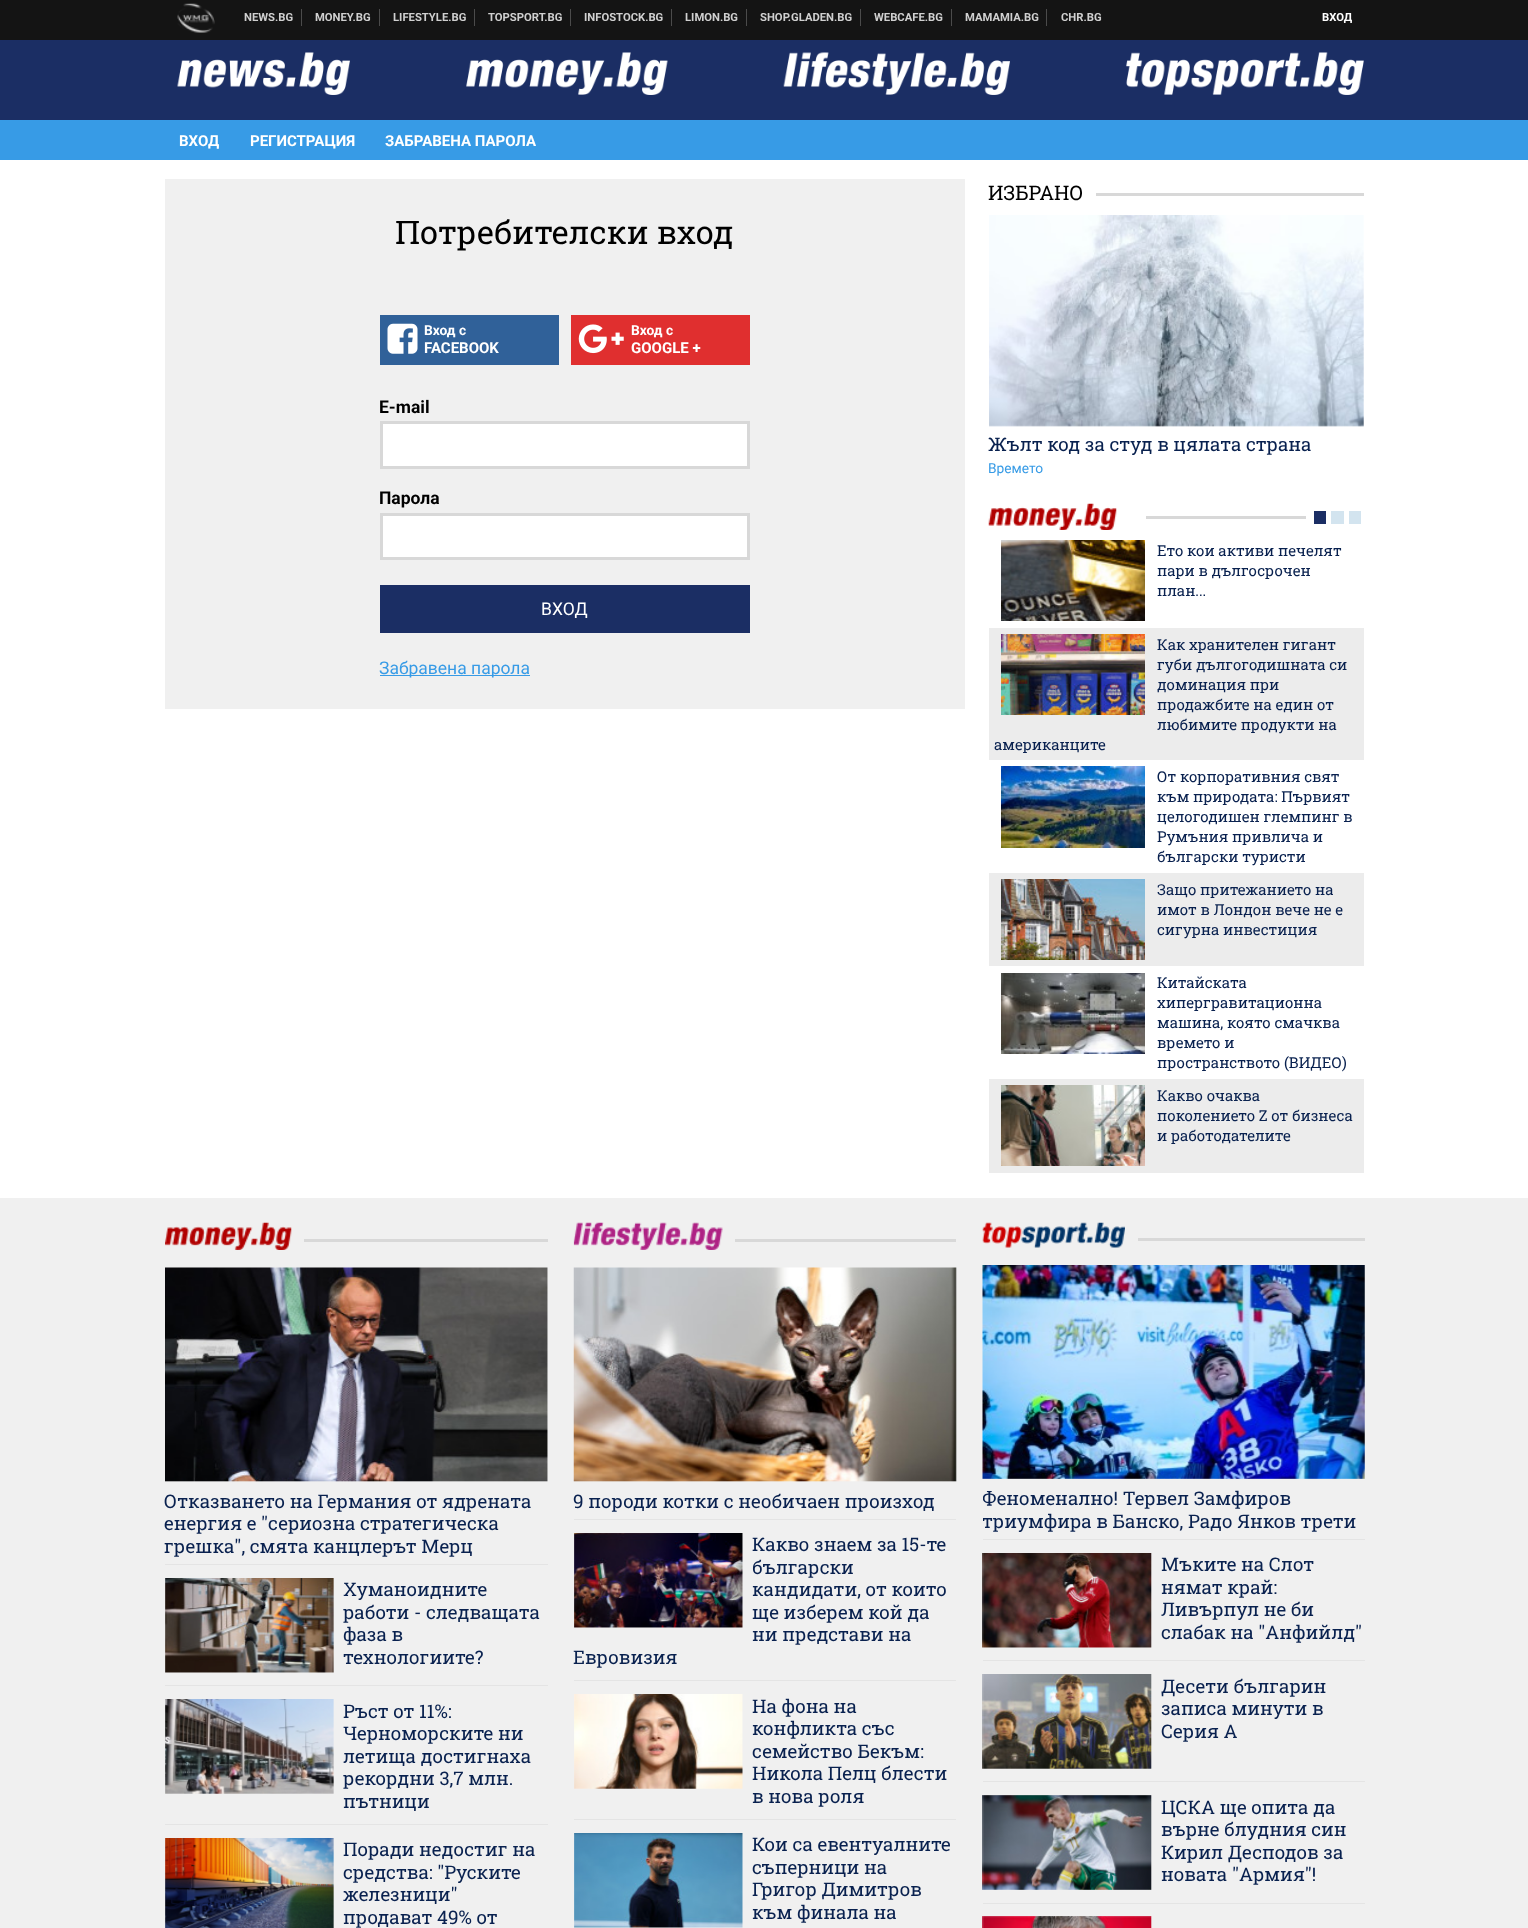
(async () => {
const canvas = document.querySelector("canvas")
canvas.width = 1528
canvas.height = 1928
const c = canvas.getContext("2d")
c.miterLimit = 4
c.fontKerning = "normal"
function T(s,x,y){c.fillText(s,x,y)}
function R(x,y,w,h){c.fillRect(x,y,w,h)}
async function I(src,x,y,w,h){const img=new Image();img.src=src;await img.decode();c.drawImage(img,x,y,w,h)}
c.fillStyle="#fff"
R(0,0,1528,1928)
c.fillStyle="#141414"
R(0,0,1528,40)
await I("1.png",177,3,38,30)
c.fillStyle="#4b4b4b"
R(301,9,1,17)
c.font="bold 11.25px Roboto"
c.fillStyle="#d0d0d0"
T("NEWS.BG",244,21)
c.fillStyle="#4b4b4b"
R(379,9,1,17)
c.fillStyle="#d0d0d0"
T("MONEY.BG",315,21)
c.fillStyle="#4b4b4b"
R(474,9,1,17)
c.fillStyle="#d0d0d0"
T("LIFESTYLE.BG",393,21)
c.fillStyle="#4b4b4b"
R(570,9,1,17)
c.fillStyle="#d0d0d0"
T("TOPSPORT.BG",488,21)
c.fillStyle="#4b4b4b"
R(671,9,1,17)
c.fillStyle="#d0d0d0"
T("INFOSTOCK.BG",584,21)
c.fillStyle="#4b4b4b"
R(746,9,1,17)
c.fillStyle="#d0d0d0"
T("LIMON.BG",685,21)
c.fillStyle="#4b4b4b"
R(860,9,1,17)
c.fillStyle="#d0d0d0"
T("SHOP.GLADEN.BG",760,21)
c.fillStyle="#4b4b4b"
R(951,9,1,17)
c.fillStyle="#d0d0d0"
T("WEBCAFE.BG",874,21)
c.fillStyle="#4b4b4b"
R(1046,9,1,17)
c.fillStyle="#d0d0d0"
T("MAMAMIA.BG",965,21)
T("CHR.BG",1061,21)
c.fillStyle="#fff"
T("ВХОД",1322,21)
c.fillStyle="#1b2e64"
R(0,40,1528,80)
await I("2.png",177,52,173,43)
await I("3.png",466,52,202,43)
await I("4.png",783,52,227,43)
await I("5.png",1126,52,238,43)
c.fillStyle="#379be6"
R(0,120,1528,40)
c.font="bold 15px Roboto"
c.fillStyle="#fff"
T("ВХОД",179,146)
T("РЕГИСТРАЦИЯ",250,146)
T("ЗАБРАВЕНА ПАРОЛА",385,146)
c.fillStyle="#f0f0f0"
R(165,179,800,530)
c.font="32.5px Roboto Slab"
c.fillStyle="#000"
T("Потребителски вход",395,244)
c.fillStyle="#306199"
R(380,315,179,50)
await I("6.png",387,323,31,31)
c.font="bold 13.75px Roboto"
c.fillStyle="#fff"
T("Вход с",424,335)
c.font="bold 15px Roboto"
T("FACEBOOK",424,353)
c.fillStyle="#e02f2f"
R(571,315,179,50)
await I("7.png",578,324,46,30)
c.font="bold 13.75px Roboto"
c.fillStyle="#fff"
T("Вход с",631,335)
c.font="bold 15px Roboto"
T("GOOGLE +",631,353)
c.font="bold 17.5px Roboto"
c.fillStyle="#000"
T("E-mail",379,413)
c.fillStyle="#fff"
c.beginPath()
c.rect(381.5,422.5,367,45)
c.fill()
c.strokeStyle="#d8d8d8"
c.lineWidth=3
c.stroke()
c.fillStyle="#000"
T("Парола",379,504)
c.fillStyle="#fff"
c.beginPath()
c.rect(381.5,514.5,367,44)
c.fill()
c.stroke()
c.fillStyle="#1b2e64"
R(380,585,370,48)
c.font="17.5px Roboto"
c.fillStyle="#fff"
T("ВХОД",541,615)
c.fillStyle="#379be6"
R(380,675,150,1)
T("Забравена парола",379,674)
c.font="20px Roboto Slab"
c.fillStyle="#000"
T("ИЗБРАНО",988,200)
c.fillStyle="#d8d8d8"
R(1096,193,268,3)
await I("8.png",989,215,375,212)
c.font="18.75px Roboto Slab"
c.fillStyle="#09214f"
T("Жълт код за студ в цялата страна",988,451)
c.font="13.75px Roboto"
c.fillStyle="#379be6"
T("Времето",988,473)
await I("9.png",988,503,129,27)
c.fillStyle="#d8d8d8"
R(1146,516,160,3)
c.fillStyle="#1b2e64"
R(1314,511,12,13)
c.fillStyle="#d3e4ef"
R(1331,511,13,13)
R(1349,511,12,13)
await I("10.png",1001,540,144,81)
c.font="15px Roboto Slab"
c.fillStyle="#09214f"
T("Ето кои активи печелят",1157,556)
T("пари в дългосрочен",1157,576)
T("план...",1157,596)
c.fillStyle="#ececec"
R(989,628,375,132)
await I("11.png",1001,634,144,81)
c.fillStyle="#09214f"
T("Как хранителен гигант",1157,650)
T("губи дългогодишната си",1157,670)
T("доминация при",1157,690)
T("продажбите на един от",1157,710)
T("любимите продукти на",1157,730)
T("американците",994,750)
await I("12.png",1001,766,144,82)
T("От корпоративния свят",1157,782)
T("към природата: Първият",1157,802)
T("целогодишен глемпинг в",1157,822)
T("Румъния привлича и",1157,842)
T("български туристи",1157,862)
c.fillStyle="#ececec"
R(989,873,375,93)
await I("13.png",1001,879,144,81)
c.fillStyle="#09214f"
T("Защо притежанието на",1157,895)
T("имот в Лондон вече не е",1157,915)
T("сигурна инвестиция",1157,935)
await I("14.png",1001,973,144,81)
T("Китайската",1157,988)
T("хипергравитационна",1157,1008)
T("машина, която смачква",1157,1028)
T("времето и",1157,1048)
T("пространството (ВИДЕО)",1157,1068)
c.fillStyle="#ececec"
R(989,1079,375,94)
await I("15.png",1001,1085,144,81)
c.fillStyle="#09214f"
T("Какво очаква",1157,1101)
T("поколението Z от бизнеса",1157,1121)
T("и работодателите",1157,1141)
c.fillStyle="#f0f0f0"
R(0,1198,1528,730)
await I("16.png",165,1222,127,28)
c.fillStyle="#d8d8d8"
R(304,1239,244,3)
await I("17.png",165,1267,383,215)
c.font="18.75px Roboto Slab"
c.fillStyle="#09214f"
T("Отказването на Германия от ядрената",164,1508)
T("енергия е \"сериозна стратегическа",164,1530)
T("грешка\", смята канцлерът Мерц",164,1553)
c.fillStyle="#e4e4e4"
R(165,1564,383,1)
await I("18.png",165,1578,169,95)
c.fillStyle="#09214f"
T("Хуманоидните",343,1596)
T("работи - следващата",343,1619)
T("фаза в",343,1641)
T("технологиите?",343,1664)
c.fillStyle="#e4e4e4"
R(165,1685,383,1)
await I("19.png",165,1699,169,95)
c.fillStyle="#09214f"
T("Ръст от 11%:",343,1718)
T("Черноморските ни",343,1740)
T("летища достигнаха",343,1763)
T("рекордни 3,7 млн.",343,1785)
T("пътници",343,1808)
c.fillStyle="#e4e4e4"
R(165,1824,383,1)
await I("20.png",165,1838,169,90)
c.fillStyle="#09214f"
T("Поради недостиг на",343,1856)
T("средства: \"Руските",343,1879)
T("железници\"",343,1901)
T("продават 49% от",343,1924)
await I("21.png",573,1222,150,28)
c.fillStyle="#d8d8d8"
R(735,1239,221,3)
await I("22.png",573,1267,384,215)
c.fillStyle="#09214f"
T("9 породи котки с необичаен произход",573,1508)
c.fillStyle="#e4e4e4"
R(574,1519,382,1)
await I("23.png",574,1533,169,95)
c.fillStyle="#09214f"
T("Какво знаем за 15-те",752,1551)
T("български",752,1574)
T("кандидати, от които",752,1596)
T("ще изберем кой да",752,1619)
T("ни представи на",752,1641)
T("Евровизия",573,1664)
c.fillStyle="#e4e4e4"
R(574,1680,382,1)
await I("24.png",574,1694,169,95)
c.fillStyle="#09214f"
T("На фона на",752,1713)
T("конфликта със",752,1735)
T("семейство Бекъм:",752,1758)
T("Никола Пелц блести",752,1780)
T("в нова роля",752,1803)
c.fillStyle="#e4e4e4"
R(574,1819,382,1)
await I("25.png",574,1833,169,95)
c.fillStyle="#09214f"
T("Кои са евентуалните",752,1851)
T("съперници на",752,1874)
T("Григор Димитров",752,1896)
T("към финала на",752,1919)
await I("26.png",982,1222,143,26)
c.fillStyle="#d8d8d8"
R(1138,1238,227,3)
await I("27.png",982,1265,383,214)
c.save()
c.beginPath()
c.rect(983,1265,382,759)
c.clip()
c.fillStyle="#09214f"
T("Феноменално! Тервел Замфиров",982,1505)
T("триумфира в Банско, Радо Янков трети",982,1528)
c.restore()
c.fillStyle="#e4e4e4"
R(983,1539,382,1)
await I("28.png",982,1553,170,95)
c.fillStyle="#09214f"
T("Мъките на Слот",1161,1571)
T("нямат край:",1161,1594)
T("Ливърпул не би",1161,1616)
T("слабак на \"Анфийлд\"",1161,1639)
c.fillStyle="#e4e4e4"
R(983,1660,382,1)
await I("29.png",982,1674,170,95)
c.fillStyle="#09214f"
T("Десети българин",1161,1693)
T("записа минути в",1161,1715)
T("Серия А",1161,1738)
c.fillStyle="#e4e4e4"
R(983,1781,382,1)
await I("30.png",982,1795,170,95)
c.fillStyle="#09214f"
T("ЦСКА ще опита да",1161,1814)
T("върне блудния син",1161,1836)
T("Кирил Десподов за",1161,1859)
T("новата \"Армия\"!",1161,1881)
c.fillStyle="#e4e4e4"
R(983,1903,382,1)
await I("31.png",982,1916,170,12)
})()
